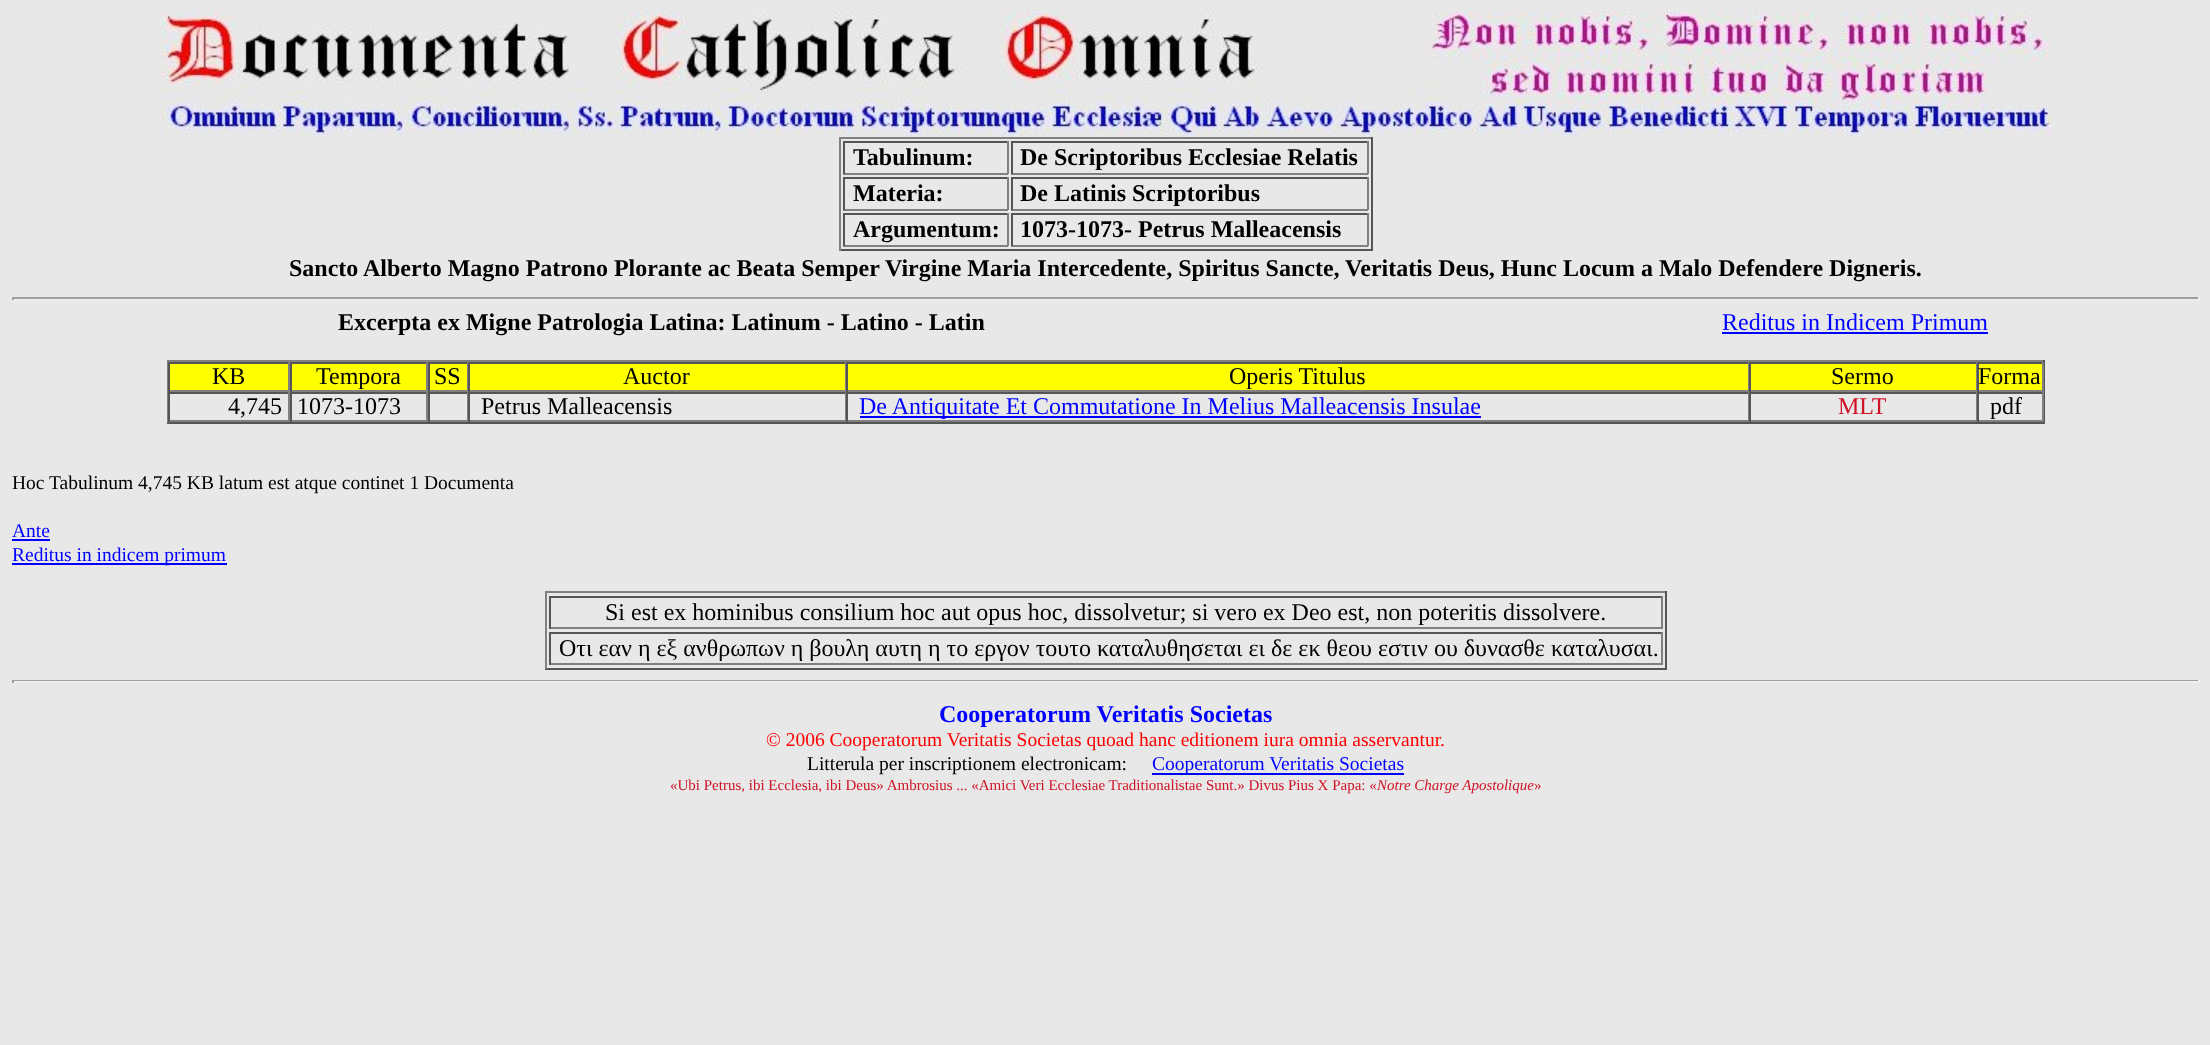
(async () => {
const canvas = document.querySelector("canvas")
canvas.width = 2210
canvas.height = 1045
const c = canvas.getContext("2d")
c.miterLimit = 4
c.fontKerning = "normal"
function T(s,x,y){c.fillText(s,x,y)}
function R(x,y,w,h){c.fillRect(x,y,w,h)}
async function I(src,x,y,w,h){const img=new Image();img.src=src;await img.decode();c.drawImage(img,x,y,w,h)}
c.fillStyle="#e8e8e8"
R(0,0,2210,1045)
await I("1.png",162,12,1889,125)
c.fillStyle="#808080"
R(839,137,534,2)
c.fillStyle="#555"
R(1371,137,2,114)
R(839,249,534,2)
c.fillStyle="#808080"
R(839,137,2,114)
c.fillStyle="#555"
R(843,141,165,2)
c.fillStyle="#808080"
R(1007,141,2,33)
R(843,173,165,2)
c.fillStyle="#555"
R(843,141,2,33)
c.font="bold 24px Liberation Serif"
c.fillStyle="#000"
T("Tabulinum:",853,165)
c.fillStyle="#555"
R(1011,141,357,2)
c.fillStyle="#808080"
R(1367,141,2,33)
R(1011,173,357,2)
c.fillStyle="#555"
R(1011,141,2,33)
c.fillStyle="#000"
T("De Scriptoribus Ecclesiae Relatis",1020,165)
c.fillStyle="#555"
R(843,177,165,2)
c.fillStyle="#808080"
R(1007,177,2,33)
R(843,209,165,2)
c.fillStyle="#555"
R(843,177,2,33)
c.fillStyle="#000"
T("Materia:",853,201)
c.fillStyle="#555"
R(1011,177,357,2)
c.fillStyle="#808080"
R(1367,177,2,33)
R(1011,209,357,2)
c.fillStyle="#555"
R(1011,177,2,33)
c.fillStyle="#000"
T("De Latinis Scriptoribus",1020,201)
c.fillStyle="#555"
R(843,213,165,2)
c.fillStyle="#808080"
R(1007,213,2,33)
R(843,245,165,2)
c.fillStyle="#555"
R(843,213,2,33)
c.fillStyle="#000"
T("Argumentum:",853,237)
c.fillStyle="#555"
R(1011,213,357,2)
c.fillStyle="#808080"
R(1367,213,2,33)
R(1011,245,357,2)
c.fillStyle="#555"
R(1011,213,2,33)
c.fillStyle="#000"
T("1073-1073- Petrus Malleacensis",1020,237)
T("Sancto Alberto Magno Patrono Plorante ac Beata Semper Virgine Maria Intercedente, Spiritus Sancte, Veritatis Deus, Hunc Locum a Malo Defendere Digneris.",289,276)
c.fillStyle="#9f9f9f"
R(12,297,2187,2)
c.fillStyle="#eee"
R(2198,297,2,3)
R(12,299,2187,2)
c.fillStyle="#9f9f9f"
R(12,297,2,3)
c.fillStyle="#000"
T("Excerpta ex Migne Patrologia Latina: Latinum - Latino - Latin",338,330)
c.font="24px Liberation Serif"
c.fillStyle="#00f"
T("Reditus in Indicem Primum",1722,330)
R(1722,332,266,2)
c.fillStyle="#808080"
R(167,360,1878,2)
c.fillStyle="#555"
R(2043,360,2,63)
R(167,422,1878,2)
c.fillStyle="#808080"
R(167,360,2,63)
c.fillStyle="#ff0"
R(170,364,118,26)
c.fillStyle="#555"
R(168,362,1875,2)
c.fillStyle="#808080"
R(288,362,2,30)
R(168,390,122,2)
c.fillStyle="#555"
R(168,362,2,30)
c.fillStyle="#000"
T("KB",212,384)
c.fillStyle="#ff0"
R(292,364,134,26)
c.fillStyle="#808080"
R(426,362,2,30)
R(290,390,138,2)
c.fillStyle="#555"
R(290,362,2,30)
c.fillStyle="#000"
T("Tempora",316,384)
c.fillStyle="#ff0"
R(430,364,37,26)
c.fillStyle="#808080"
R(467,362,1,30)
R(428,390,40,2)
c.fillStyle="#555"
R(428,362,2,30)
c.fillStyle="#000"
T("SS",434,384)
c.fillStyle="#ff0"
R(470,364,375,26)
c.fillStyle="#808080"
R(845,362,1,30)
R(468,390,378,2)
c.fillStyle="#555"
R(468,362,2,30)
c.fillStyle="#000"
T("Auctor",623,384)
c.fillStyle="#ff0"
R(848,364,900,26)
c.fillStyle="#808080"
R(1748,362,1,30)
R(846,390,903,2)
c.fillStyle="#555"
R(846,362,2,30)
c.fillStyle="#000"
T("Operis Titulus",1229,384)
c.fillStyle="#ff0"
R(1751,364,225,26)
c.fillStyle="#808080"
R(1976,362,1,30)
R(1749,390,228,2)
c.fillStyle="#555"
R(1749,362,2,30)
c.fillStyle="#000"
T("Sermo",1831,384)
c.fillStyle="#ff0"
R(1979,364,63,26)
c.fillStyle="#808080"
R(2042,362,2,30)
R(1977,390,66,2)
c.fillStyle="#555"
R(1977,362,2,30)
c.fillStyle="#000"
T("Forma",1978,384)
c.fillStyle="#555"
R(168,392,1875,2)
c.fillStyle="#808080"
R(288,392,2,30)
R(168,420,122,2)
c.fillStyle="#555"
R(168,392,2,30)
c.fillStyle="#000"
T("4,745",228,414)
c.fillStyle="#808080"
R(426,392,2,30)
R(290,420,138,2)
c.fillStyle="#555"
R(290,392,2,30)
c.fillStyle="#000"
T("1073-1073",297,414)
c.fillStyle="#808080"
R(467,392,1,30)
R(428,420,40,2)
c.fillStyle="#555"
R(428,392,2,30)
c.fillStyle="#808080"
R(845,392,1,30)
R(468,420,378,2)
c.fillStyle="#555"
R(468,392,2,30)
c.fillStyle="#000"
T("Petrus Malleacensis",481,414)
c.fillStyle="#808080"
R(1748,392,1,30)
R(846,420,903,2)
c.fillStyle="#555"
R(846,392,2,30)
c.fillStyle="#00f"
R(860,416,621,2)
T("De Antiquitate Et Commutatione In Melius Malleacensis Insulae",859,414)
c.fillStyle="#808080"
R(1976,392,1,30)
R(1749,420,228,2)
c.fillStyle="#555"
R(1749,392,2,30)
c.fillStyle="#cf1326"
T("MLT",1838,414)
c.fillStyle="#808080"
R(2042,392,2,30)
R(1977,420,66,2)
c.fillStyle="#555"
R(1977,392,2,30)
c.fillStyle="#000"
T("pdf",1990,414)
c.font="19.5px Liberation Serif"
T("Hoc Tabulinum 4,745 KB latum est atque continet 1 Documenta",12,489)
c.fillStyle="#00f"
T("Ante",12,537)
R(12,539,38,2)
R(12,563,215,2)
T("Reditus in indicem primum",12,561)
c.fillStyle="#808080"
R(545,591,1122,2)
c.fillStyle="#555"
R(1665,591,2,78)
R(545,668,1122,2)
c.fillStyle="#808080"
R(545,591,2,78)
c.fillStyle="#555"
R(549,596,1113,2)
c.fillStyle="#808080"
R(1661,596,2,33)
R(549,627,1113,2)
c.fillStyle="#555"
R(549,596,2,33)
c.font="24px Liberation Serif"
c.fillStyle="#000"
T("Si est ex hominibus consilium hoc aut opus hoc, dissolvetur; si vero ex Deo est, non poteritis dissolvere.",605,620)
c.fillStyle="#555"
R(549,632,1113,2)
c.fillStyle="#808080"
R(1661,632,2,33)
R(549,663,1113,2)
c.fillStyle="#555"
R(549,632,2,33)
c.fillStyle="#000"
T("Οτι εαν η εξ ανθρωπων η βουλη αυτη η το εργον τουτο καταλυθησεται ει δε εκ θεου εστιν ου δυνασθε καταλυσαι.",559,656)
c.fillStyle="#9f9f9f"
R(12,680,2187,1)
c.fillStyle="#eee"
R(2198,680,2,3)
R(12,681,2187,2)
c.fillStyle="#9f9f9f"
R(12,680,2,3)
c.font="bold 24px Liberation Serif"
c.fillStyle="#00f"
T("Cooperatorum Veritatis Societas",939,722)
c.font="19.5px Liberation Serif"
c.fillStyle="#f00"
T("© 2006 Cooperatorum Veritatis Societas quoad hanc editionem iura omnia asservantur.",766,746)
c.fillStyle="#000"
T("Litterula per inscriptionem electronicam:",807,770)
c.fillStyle="#00f"
R(1152,773,252,2)
T("Cooperatorum Veritatis Societas",1152,770)
c.font="15px Liberation Serif"
c.fillStyle="#cf1326"
T("«Ubi Petrus, ibi Ecclesia, ibi Deus» Ambrosius ... «Amici Veri Ecclesiae Traditionalistae Sunt.» Divus Pius X Papa: «",670,790)
c.font="italic 15px Liberation Serif"
T("Notre Charge Apostolique",1377,790)
c.font="15px Liberation Serif"
T("»",1534,790)
})()
